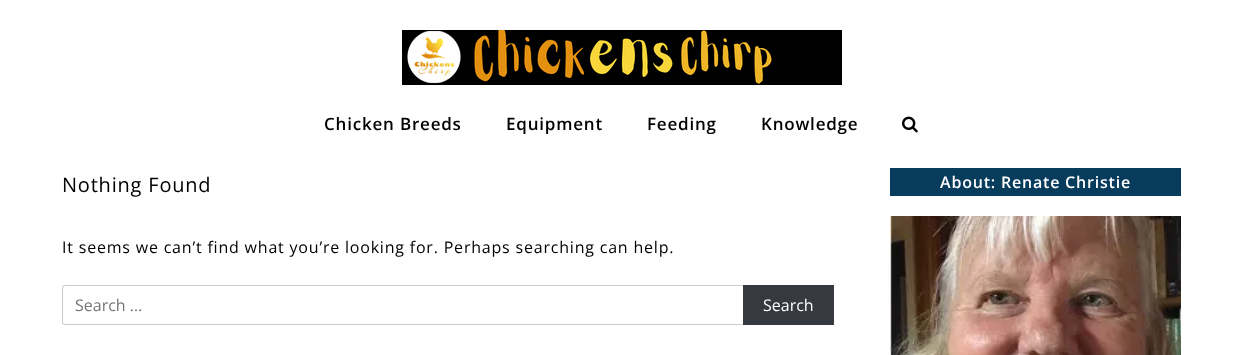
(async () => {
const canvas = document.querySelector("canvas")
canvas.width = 1243
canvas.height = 355
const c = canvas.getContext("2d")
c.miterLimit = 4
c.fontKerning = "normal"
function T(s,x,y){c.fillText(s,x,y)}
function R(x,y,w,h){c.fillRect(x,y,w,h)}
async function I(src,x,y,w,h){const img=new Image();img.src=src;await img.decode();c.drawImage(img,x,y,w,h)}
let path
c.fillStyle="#fff"
R(0,0,1243,355)
await I("1.png",402,30,440,55)
c.letterSpacing="0.8px"
c.font="600 17px Open Sans"
c.fillStyle="#000"
T("Chicken Breeds",324,130)
T("Equipment",506,130)
T("Feeding",647,130)
T("Knowledge",761,130)
await I("2.png",902,116,16,17)
c.font="20px Open Sans"
T("Nothing Found",62,192)
c.font="16px Open Sans"
T("It seems we can’t find what you’re looking for. Perhaps searching can help.",62,253)
c.fillStyle="#ccc"
path = new Path2D("M65 285h678v40h-678c-2 0-3-1-3-3v-34c0-2 1-3 3-3zm0 1h678v38h-678c-1 0-2-1-2-2v-34c0-1 1-2 2-2z")
c.fill(path,"evenodd")
c.letterSpacing="0px"
c.fillStyle="#757575"
T("Search …",75,311)
c.fillStyle="#363940"
R(743,285,91,40)
c.fillStyle="#fff"
T("Search",763,311)
c.fillStyle="#083c5d"
R(890,168,291,28)
c.letterSpacing="0.8px"
c.font="600 16px Open Sans"
c.fillStyle="#fff"
T("About: Renate Christie",940,188)
await I("3.png",890,216,291,139)
})()
